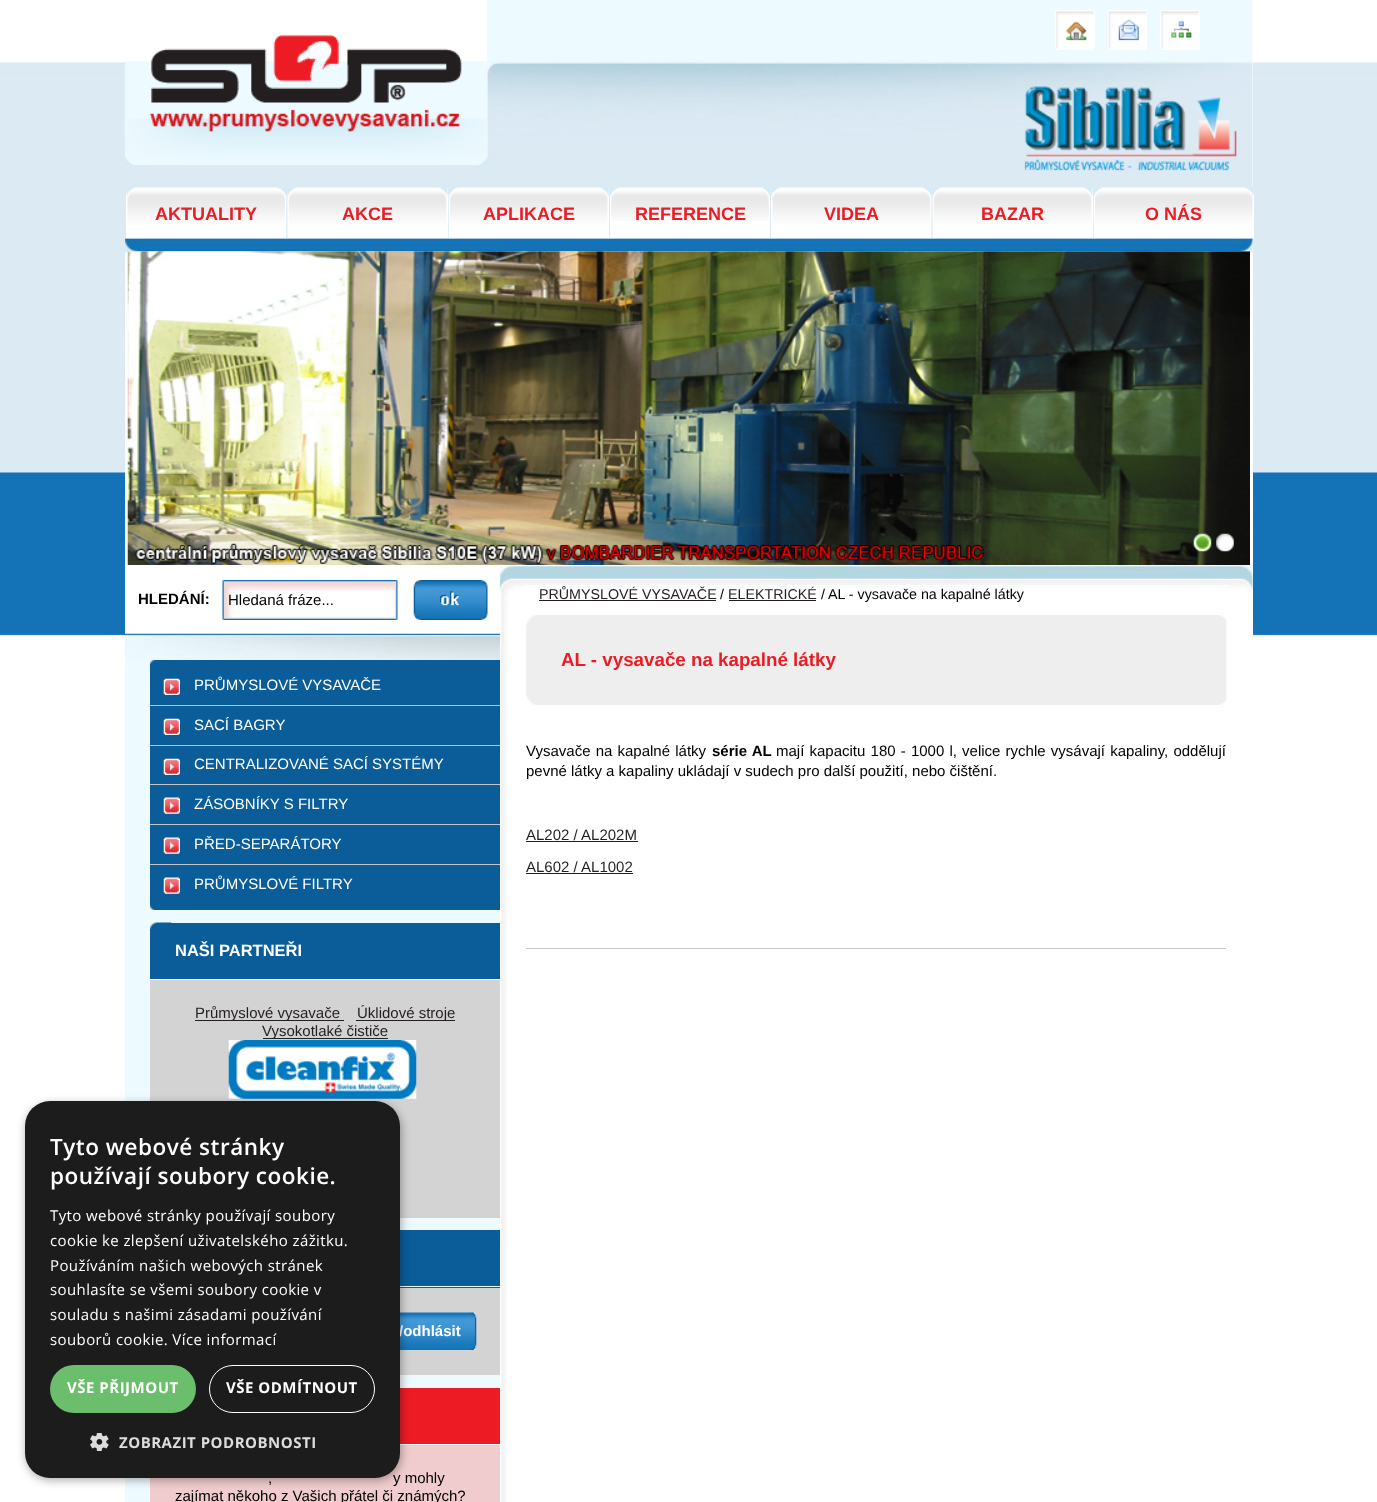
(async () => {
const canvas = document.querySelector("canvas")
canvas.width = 1377
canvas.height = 1502
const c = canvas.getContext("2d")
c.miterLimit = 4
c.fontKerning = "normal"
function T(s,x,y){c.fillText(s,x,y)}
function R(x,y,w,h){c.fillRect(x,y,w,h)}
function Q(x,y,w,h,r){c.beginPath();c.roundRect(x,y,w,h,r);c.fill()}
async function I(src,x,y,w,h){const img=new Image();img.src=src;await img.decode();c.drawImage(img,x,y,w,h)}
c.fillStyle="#fff"
R(0,0,1377,1502)
await I("1.png",0,62,1377,574)
R(507,62,746,574)
await I("2.png",125,660,382,842)
await I("13.png",125,0,1128,660)
await I("3.png",1055,10,40,40)
await I("4.png",1107,10,41,40)
await I("5.png",1160,10,40,40)
R(126,188,160,50)
await I("6.png",126,187,161,51)
c.font="bold 18px Liberation Sans"
c.fillStyle="#eb1c24"
T("AKTUALITY",155,220)
c.fillStyle="#fff"
R(288,188,160,50)
await I("7.png",287,187,161,51)
c.fillStyle="#eb1c24"
T("AKCE",342,220)
c.fillStyle="#fff"
R(449,188,160,50)
await I("8.png",448,187,161,51)
c.fillStyle="#eb1c24"
T("APLIKACE",483,220)
c.fillStyle="#fff"
R(610,221,160,17)
await I("9.png",610,187,160,34)
c.fillStyle="#eb1c24"
T("REFERENCE",635,220)
c.fillStyle="#fff"
R(771,188,160,50)
await I("10.png",771,187,161,51)
c.fillStyle="#eb1c24"
T("VIDEA",824,220)
c.fillStyle="#fff"
R(933,188,160,50)
await I("11.png",932,187,161,51)
c.fillStyle="#eb1c24"
T("BAZAR",981,220)
c.fillStyle="#fff"
R(1094,188,160,50)
await I("12.png",1093,187,161,51)
c.fillStyle="#eb1c24"
T("O NÁS",1145,220)
await I("14.png",125,0,363,165)
await I("15.png",127,251,1123,314)
await I("16.png",1193,533,19,19)
await I("17.png",1216,533,18,19)
c.font="bold 15px Liberation Sans"
c.fillStyle="#000"
T("HLEDÁNÍ:",138,604)
await I("18.png",222,580,176,40)
c.font="15px Liberation Sans"
T("Hledaná fráze...",228,605)
await I("19.png",413,580,75,40)
c.strokeStyle="#fff"
c.strokeRect(525.5,585.5,702,428)
c.font="14.25px Liberation Sans"
c.fillStyle="#231f20"
T("PRŮMYSLOVÉ VYSAVAČE",539,599)
R(539,600,177,1)
c.fillStyle="#000"
T("/",720,599)
c.fillStyle="#231f20"
T("ELEKTRICKÉ",728,599)
R(729,600,87,1)
c.fillStyle="#000"
T("/",821,599)
T("AL - vysavače na kapalné látky",828,599)
await I("20.png",526,615,701,90)
c.font="bold 18.75px Liberation Sans"
c.fillStyle="#eb1c24"
T("AL - vysavače na kapalné látky",561,666)
c.wordSpacing="1px"
c.font="15px Liberation Sans"
c.fillStyle="#000"
T("Vysavače na kapalné látky",526,756)
c.font="bold 15px Liberation Sans"
T("série AL",712,756)
c.font="15px Liberation Sans"
T("mají kapacitu 180 - 1000 l, velice rychle vysávají kapaliny, oddělují",776,756)
c.wordSpacing="0px"
T("pevné látky a kapaliny ukládají v sudech pro další použití, nebo čištění.",526,776)
c.fillStyle="#231f20"
T("AL202 / AL202M",526,840)
R(526,841,112,1)
T("AL602 / AL1002",526,872)
R(526,873,107,1)
c.fillStyle="#c7c7c7"
R(526,948,700,1)
c.fillStyle="#0a5d99"
R(150,660,350,250)
await I("21.png",150,660,5,5)
await I("22.png",150,905,5,5)
await I("23.png",163,678,17,17)
c.fillStyle="#fff"
T("PRŮMYSLOVÉ VYSAVAČE",194,690)
c.fillStyle="#c4c4c4"
R(150,705,350,1)
await I("23.png",163,718,17,17)
c.fillStyle="#fff"
T("SACÍ BAGRY",194,730)
c.fillStyle="#c4c4c4"
R(150,745,350,1)
await I("23.png",163,758,17,17)
c.fillStyle="#fff"
T("CENTRALIZOVANÉ SACÍ SYSTÉMY",194,769)
c.fillStyle="#c4c4c4"
R(150,784,350,1)
await I("24.png",163,797,17,17)
c.fillStyle="#fff"
T("ZÁSOBNÍKY S FILTRY",194,809)
c.fillStyle="#c4c4c4"
R(150,824,350,1)
await I("24.png",163,837,17,17)
c.fillStyle="#fff"
T("PŘED-SEPARÁTORY",194,849)
c.fillStyle="#c4c4c4"
R(150,864,350,1)
await I("24.png",163,877,17,17)
c.fillStyle="#fff"
T("PRŮMYSLOVÉ FILTRY",194,889)
c.fillStyle="#d3d3d3"
R(150,980,350,238)
c.fillStyle="#0a5d99"
R(150,923,350,56)
await I("25.png",150,922,22,7)
c.font="bold 16.5px Liberation Sans"
c.fillStyle="#fff"
T("NAŠI PARTNEŘI",175,956)
c.fillStyle="#231f20"
R(195,1020,149,1)
c.font="15px Liberation Sans"
T("Průmyslové vysavače",195,1018)
R(356,1020,99,1)
T("Úklidové stroje",357,1018)
R(263,1038,125,1)
T("Vysokotlaké čističe",262,1036)
await I("26.png",228,1040,189,59)
c.fillStyle="#d3d3d3"
R(400,1288,100,87)
c.fillStyle="#0a5d99"
R(400,1230,100,58)
c.fillStyle="#edfaff"
R(400,1286,100,1)
await I("27.png",400,1312,77,38)
c.font="bold 15px Liberation Sans"
c.fillStyle="#fff"
T("/odhlásit",399,1336)
c.fillStyle="#f0ccce"
R(150,1445,350,57)
c.fillStyle="#ed1c24"
R(400,1388,100,56)
c.font="15px Liberation Sans"
c.fillStyle="#000"
T(",",268,1483)
T("y mohly",393,1483)
T("zajímat někoho z Vašich přátel či známých?",175,1501)
c.fillStyle="#00000059"
c.filter="blur(5px)"
c.beginPath()
c.roundRect(26,1104,375,376,25)
c.fill()
c.filter="none"
c.fillStyle="#1c1c1c"
Q(25,1101,375,377,25)
c.letterSpacing="0.5px"
c.font="600 22.5px Open Sans"
c.fillStyle="#fff"
T("Tyto webové stránky",50,1155)
T("používají soubory cookie.",50,1184)
c.letterSpacing="0.4px"
c.font="15px Open Sans"
T("Tyto webové stránky používají soubory",50,1221)
T("cookie ke zlepšení uživatelského zážitku.",50,1246)
T("Používáním našich webových stránek",50,1271)
T("souhlasíte se všemi soubory cookie v",50,1295)
T("souladu s našimi zásadami používání",50,1320)
T("souborů cookie. Více informací",50,1345)
c.fillStyle="#6bbe6b"
Q(50,1365,146,48,24)
c.letterSpacing="0.5px"
c.font="bold 15px Open Sans"
c.fillStyle="#fff"
T("VŠE PŘIJMOUT",67,1393)
c.beginPath()
c.roundRect(209.5,1365.5,165,47,23.5)
c.stroke()
T("VŠE ODMÍTNOUT",226,1393)
await I("28.png",90,1433,19,18)
c.fillStyle="#ddd"
T("ZOBRAZIT PODROBNOSTI",119,1448)
})()
